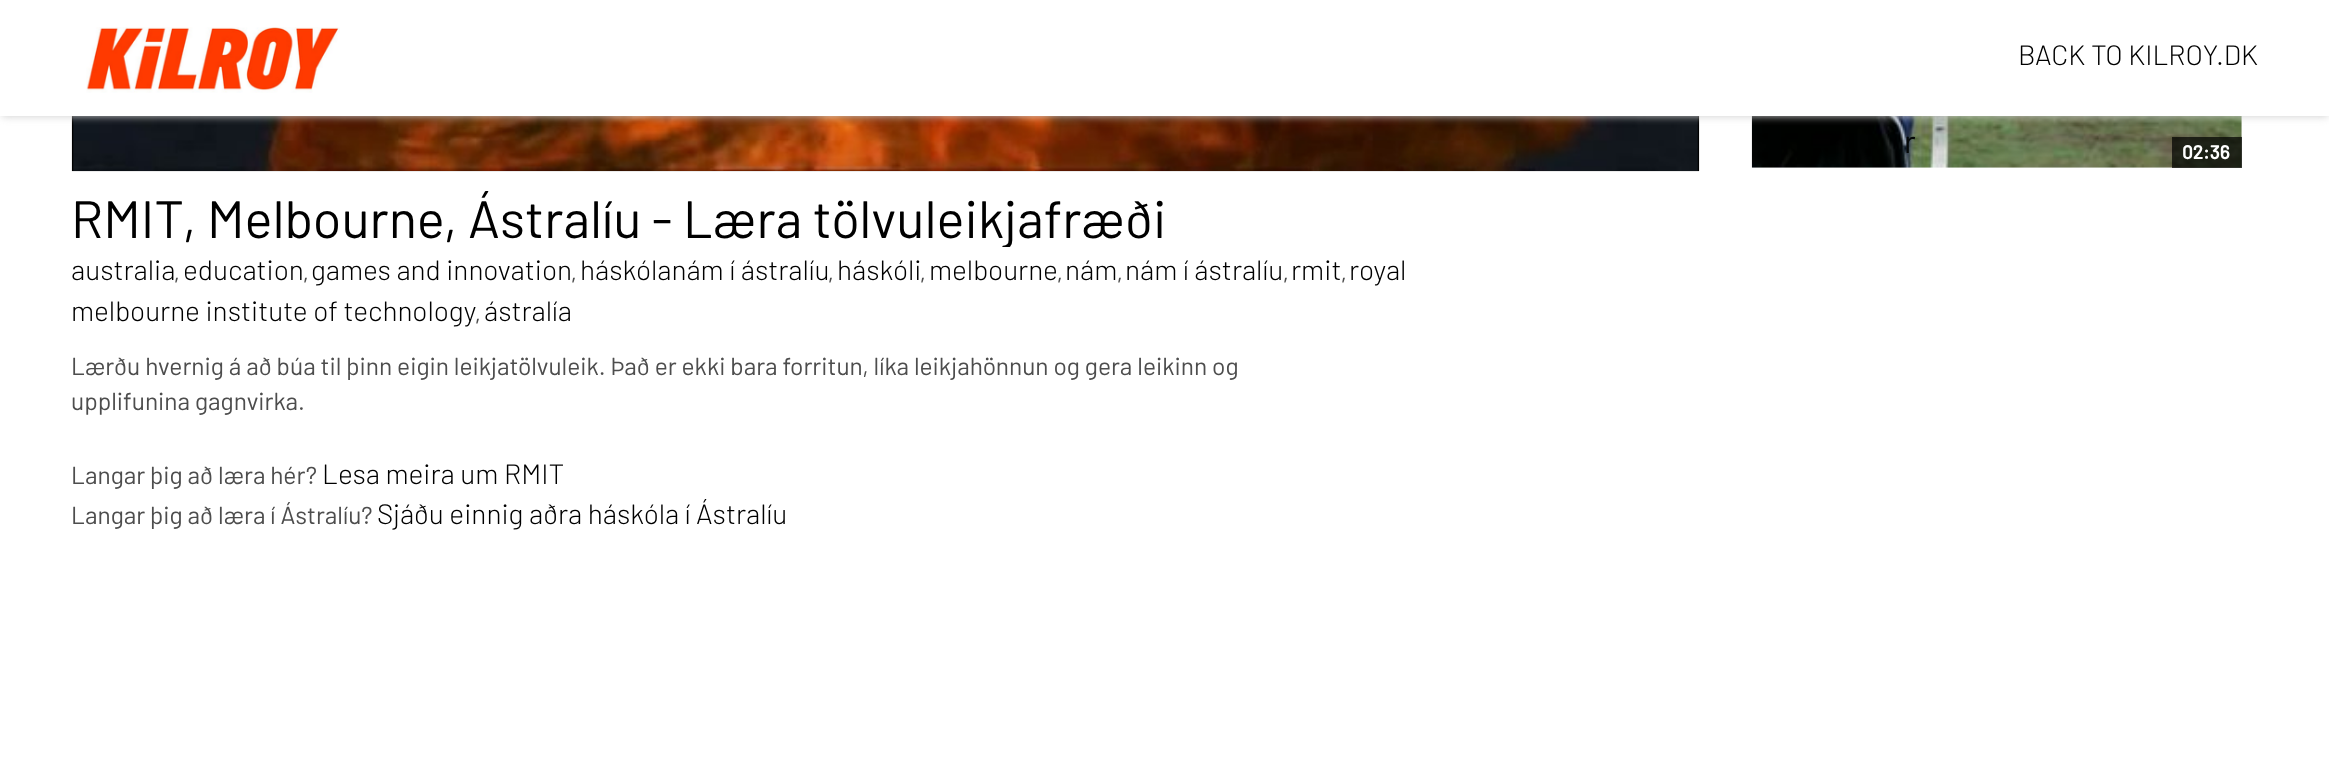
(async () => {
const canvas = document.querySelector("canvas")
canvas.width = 2329
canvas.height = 770
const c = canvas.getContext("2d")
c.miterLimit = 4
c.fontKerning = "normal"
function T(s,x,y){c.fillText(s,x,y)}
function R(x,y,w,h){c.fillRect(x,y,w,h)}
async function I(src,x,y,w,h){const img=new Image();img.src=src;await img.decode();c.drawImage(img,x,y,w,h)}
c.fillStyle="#fff"
R(0,0,2329,770)
await I("2.png",1751,116,491,52)
await I("3.png",71,116,1629,56)
c.fillStyle="#ccc"
c.filter="blur(4.5px)"
c.beginPath()
c.rect(2,-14,2326,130)
c.fill()
c.filter="none"
c.fillStyle="#fff"
R(0,0,2329,116)
await I("1.png",86,27,254,66)
c.font="300 28px Barlow"
c.fillStyle="#000"
T("BACK TO KILROY.DK",2018,65)
c.font="32px Barlow"
c.fillStyle="#060908"
T("r",1904,153)
c.fillStyle="#000000b3"
R(2172,137,70,31)
c.font="bold 19px Barlow"
c.fillStyle="#fff"
T("02:36",2182,159)
c.save()
c.beginPath()
c.rect(72,189,1347,58)
c.clip()
c.font="52.5px Barlow"
c.fillStyle="#000"
T("RMIT, Melbourne, Ástralíu - Læra tölvuleikjafræði",71,238)
c.restore()
c.font="300 28px Barlow"
c.fillStyle="#000"
T("australia",71,280)
c.font="21px 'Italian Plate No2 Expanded'"
c.fillStyle="#4d4d4d"
T(",",175,280)
c.font="300 28px Barlow"
c.fillStyle="#000"
T("education",183,280)
c.font="21px 'Italian Plate No2 Expanded'"
c.fillStyle="#4d4d4d"
T(",",304,280)
c.font="300 28px Barlow"
c.fillStyle="#000"
T("games and innovation",311,280)
c.font="21px 'Italian Plate No2 Expanded'"
c.fillStyle="#4d4d4d"
T(",",572,280)
c.font="300 28px Barlow"
c.fillStyle="#000"
T("háskólanám í ástralíu",580,280)
c.font="21px 'Italian Plate No2 Expanded'"
c.fillStyle="#4d4d4d"
T(",",829,280)
c.font="300 28px Barlow"
c.fillStyle="#000"
T("háskóli",837,280)
c.font="21px 'Italian Plate No2 Expanded'"
c.fillStyle="#4d4d4d"
T(",",921,280)
c.font="300 28px Barlow"
c.fillStyle="#000"
T("melbourne",929,280)
c.font="21px 'Italian Plate No2 Expanded'"
c.fillStyle="#4d4d4d"
T(",",1058,280)
c.font="300 28px Barlow"
c.fillStyle="#000"
T("nám",1065,280)
c.font="21px 'Italian Plate No2 Expanded'"
c.fillStyle="#4d4d4d"
T(",",1118,280)
c.font="300 28px Barlow"
c.fillStyle="#000"
T("nám í ástralíu",1125,280)
c.font="21px 'Italian Plate No2 Expanded'"
c.fillStyle="#4d4d4d"
T(",",1284,280)
c.font="300 28px Barlow"
c.fillStyle="#000"
T("rmit",1291,280)
c.font="21px 'Italian Plate No2 Expanded'"
c.fillStyle="#4d4d4d"
T(",",1342,280)
c.font="300 28px Barlow"
c.fillStyle="#000"
T("royal",1349,280)
T("melbourne institute of technology",71,321)
c.font="21px 'Italian Plate No2 Expanded'"
c.fillStyle="#4d4d4d"
T(",",476,321)
c.font="300 28px Barlow"
c.fillStyle="#000"
T("ástralía",484,321)
c.font="24.5px Barlow"
c.fillStyle="#4d4d4d"
T("Lærðu hvernig á að búa til þinn eigin leikjatölvuleik. Það er ekki bara forritun, líka leikjahönnun og gera leikinn og",71,375)
T("upplifunina gagnvirka.",71,410)
T("Langar þig að læra hér?",71,484)
c.font="300 28px Barlow"
c.fillStyle="#000"
T("Lesa meira um RMIT",322,484)
c.font="24.5px Barlow"
c.fillStyle="#4d4d4d"
T("Langar þig að læra í Ástralíu?",71,524)
c.font="300 28px Barlow"
c.fillStyle="#000"
T("Sjáðu einnig aðra háskóla í Ástralíu",377,524)
})()
